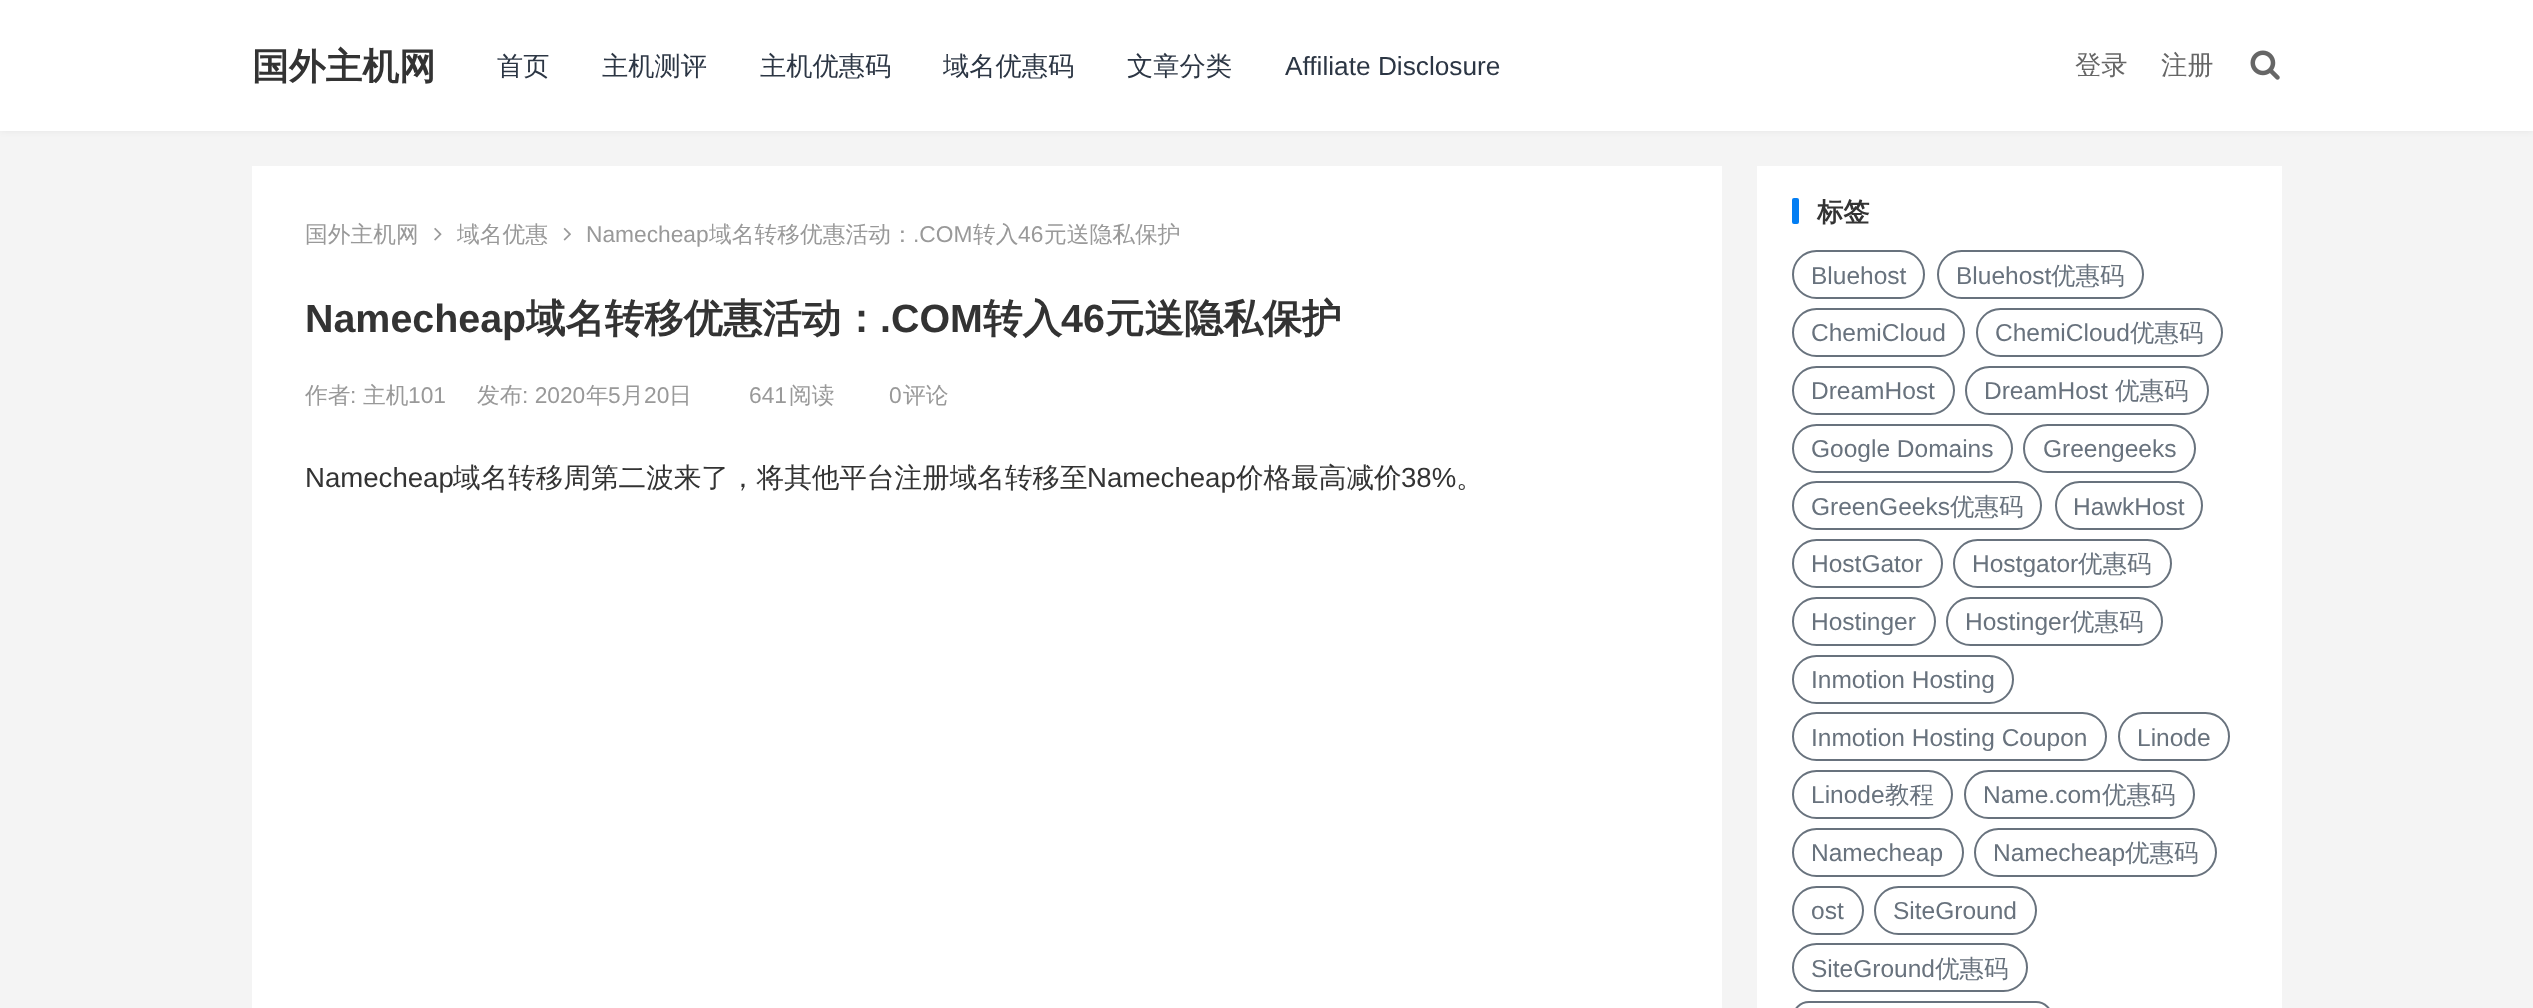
(async () => {
const canvas = document.querySelector("canvas")
canvas.width = 2533
canvas.height = 1008
const c = canvas.getContext("2d")
c.miterLimit = 4
c.fontKerning = "normal"
function T(s,x,y){c.fillText(s,x,y)}
function R(x,y,w,h){c.fillRect(x,y,w,h)}
function Q(x,y,w,h,r){c.beginPath();c.roundRect(x,y,w,h,r);c.fill()}
async function I(src,x,y,w,h){const img=new Image();img.src=src;await img.decode();c.drawImage(img,x,y,w,h)}
c.fillStyle="#f4f4f4"
R(0,0,2533,1008)
c.fillStyle="#0000000f"
c.filter="blur(3.5px)"
c.beginPath()
c.rect(0,0,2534,131)
c.fill()
c.filter="none"
c.fillStyle="#fff"
R(0,0,2533,131)
c.font="bold 36.75px WenQuanYi Zen Hei"
c.fillStyle="#333"
T("国外主机网",252,79)
c.font="500 26.25px WenQuanYi Zen Hei"
c.fillStyle="#2c3644"
T("首页",497,75)
T("主机测评",602,75)
T("主机优惠码",760,75)
T("域名优惠码",943,75)
T("文章分类",1127,75)
c.font="26.25px Liberation Sans"
T("Affiliate Disclosure",1285,75)
c.font="500 26.25px WenQuanYi Zen Hei"
c.fillStyle="#666"
T("登录",2075,74)
T("注册",2161,74)
await I("1.png",2250,50,30,30)
c.fillStyle="#fff"
R(252,166,1470,842)
c.font="500 22.75px WenQuanYi Zen Hei"
c.fillStyle="#999"
T("国外主机网",305,242)
await I("2.png",434,227,8,14)
T("域名优惠",457,242)
await I("3.png",563,227,8,14)
c.font="22.75px Liberation Sans"
T("Namecheap",586,242)
c.font="500 22.75px WenQuanYi Zen Hei"
T("域名转移优惠活动：",709,242)
c.font="22.75px Liberation Sans"
T(".COM",913,242)
c.font="500 22.75px WenQuanYi Zen Hei"
T("转入",973,242)
c.font="22.75px Liberation Sans"
T("46",1018,242)
c.font="500 22.75px WenQuanYi Zen Hei"
T("元送隐私保护",1044,242)
c.font="bold 39.4px Liberation Sans"
c.fillStyle="#333"
T("Namecheap",305,332)
c.font="bold 39.4px WenQuanYi Zen Hei"
T("域名转移优惠活动：",526,332)
c.font="bold 39.4px Liberation Sans"
T(".COM",880,332)
c.font="bold 39.4px WenQuanYi Zen Hei"
T("转入",983,332)
c.font="bold 39.4px Liberation Sans"
T("46",1061,332)
c.font="bold 39.4px WenQuanYi Zen Hei"
T("元送隐私保护",1105,332)
c.font="500 22.75px WenQuanYi Zen Hei"
c.fillStyle="#999"
T("作者",305,403)
c.font="22.75px Liberation Sans"
T(":",350,403)
c.font="500 22.75px WenQuanYi Zen Hei"
T("主机",363,403)
c.font="22.75px Liberation Sans"
T("101",408,403)
c.font="500 22.75px WenQuanYi Zen Hei"
T("发布",477,403)
c.font="22.75px Liberation Sans"
T(": 2020",522,403)
c.font="500 22.75px WenQuanYi Zen Hei"
T("年",586,403)
c.font="22.75px Liberation Sans"
T("5",608,403)
c.font="500 22.75px WenQuanYi Zen Hei"
T("月",621,403)
c.font="22.75px Liberation Sans"
T("20",644,403)
c.font="500 22.75px WenQuanYi Zen Hei"
T("日",669,403)
c.font="22.75px Liberation Sans"
T("641",749,403)
c.font="500 22.75px WenQuanYi Zen Hei"
T("阅读",789,403)
c.font="22.75px Liberation Sans"
T("0",889,403)
c.font="500 22.75px WenQuanYi Zen Hei"
T("评论",903,403)
c.font="27.6px Liberation Sans"
c.fillStyle="#333"
T("Namecheap",305,487)
c.font="500 27.6px WenQuanYi Zen Hei"
T("域名转移周第二波来了，将其他平台注册域名转移至",453,487)
c.font="27.6px Liberation Sans"
T("Namecheap",1087,487)
c.font="500 27.6px WenQuanYi Zen Hei"
T("价格最高减价",1236,487)
c.font="27.6px Liberation Sans"
T("38%",1401,487)
c.font="500 27.6px WenQuanYi Zen Hei"
T("。",1456,487)
c.fillStyle="#fff"
R(1757,166,525,842)
c.fillStyle="#037ef3"
Q(1792,198,7,26,2)
c.font="bold 26.25px WenQuanYi Zen Hei"
c.fillStyle="#333"
T("标签",1817,221)
c.beginPath()
c.roundRect(1793,251,131,47,23.5)
c.strokeStyle="#68727d"
c.lineWidth=2
c.stroke()
c.font="24.5px Liberation Sans"
c.fillStyle="#68727d"
T("Bluehost",1811,284)
c.beginPath()
c.roundRect(1938,251,205,47,23.5)
c.stroke()
T("Bluehost",1956,284)
c.font="500 24.5px WenQuanYi Zen Hei"
T("优惠码",2051,284)
c.beginPath()
c.roundRect(1793,309,171,47,23.5)
c.stroke()
c.font="24.5px Liberation Sans"
T("ChemiCloud",1811,341)
c.beginPath()
c.roundRect(1977,309,245,47,23.5)
c.stroke()
T("ChemiCloud",1995,341)
c.font="500 24.5px WenQuanYi Zen Hei"
T("优惠码",2130,341)
c.beginPath()
c.roundRect(1793,367,161,47,23.5)
c.stroke()
c.font="24.5px Liberation Sans"
T("DreamHost",1811,399)
c.beginPath()
c.roundRect(1966,367,242,47,23.5)
c.stroke()
T("DreamHost",1984,399)
c.font="500 24.5px WenQuanYi Zen Hei"
T("优惠码",2115,399)
c.beginPath()
c.roundRect(1793,425,219,47,23.5)
c.stroke()
c.font="24.5px Liberation Sans"
T("Google Domains",1811,457)
c.beginPath()
c.roundRect(2024,425,171,47,23.5)
c.stroke()
T("Greengeeks",2043,457)
c.beginPath()
c.roundRect(1793,482,248,47,23.5)
c.stroke()
T("GreenGeeks",1811,515)
c.font="500 24.5px WenQuanYi Zen Hei"
T("优惠码",1950,515)
c.beginPath()
c.roundRect(2056,482,146,47,23.5)
c.stroke()
c.font="24.5px Liberation Sans"
T("HawkHost",2073,515)
c.beginPath()
c.roundRect(1793,540,149,47,23.5)
c.stroke()
T("HostGator",1811,572)
c.beginPath()
c.roundRect(1954,540,217,47,23.5)
c.stroke()
T("Hostgator",1972,572)
c.font="500 24.5px WenQuanYi Zen Hei"
T("优惠码",2078,572)
c.beginPath()
c.roundRect(1793,598,142,47,23.5)
c.stroke()
c.font="24.5px Liberation Sans"
T("Hostinger",1811,630)
c.beginPath()
c.roundRect(1947,598,215,47,23.5)
c.stroke()
T("Hostinger",1965,630)
c.font="500 24.5px WenQuanYi Zen Hei"
T("优惠码",2070,630)
c.beginPath()
c.roundRect(1793,656,220,47,23.5)
c.stroke()
c.font="24.5px Liberation Sans"
T("Inmotion Hosting",1811,688)
c.beginPath()
c.roundRect(1793,713,313,47,23.5)
c.stroke()
T("Inmotion Hosting Coupon",1811,746)
c.beginPath()
c.roundRect(2119,713,110,47,23.5)
c.stroke()
T("Linode",2137,746)
c.beginPath()
c.roundRect(1793,771,159,47,23.5)
c.stroke()
T("Linode",1811,803)
c.font="500 24.5px WenQuanYi Zen Hei"
T("教程",1885,803)
c.beginPath()
c.roundRect(1965,771,229,47,23.5)
c.stroke()
c.font="24.5px Liberation Sans"
T("Name.com",1983,803)
c.font="500 24.5px WenQuanYi Zen Hei"
T("优惠码",2102,803)
c.beginPath()
c.roundRect(1793,829,170,47,23.5)
c.stroke()
c.font="24.5px Liberation Sans"
T("Namecheap",1811,861)
c.beginPath()
c.roundRect(1975,829,241,47,23.5)
c.stroke()
T("Namecheap",1993,861)
c.font="500 24.5px WenQuanYi Zen Hei"
T("优惠码",2125,861)
c.beginPath()
c.roundRect(1793,887,70,47,23.5)
c.stroke()
c.font="24.5px Liberation Sans"
T("ost",1811,919)
c.beginPath()
c.roundRect(1875,887,161,47,23.5)
c.stroke()
T("SiteGround",1893,919)
c.beginPath()
c.roundRect(1793,944,234,47,23.5)
c.stroke()
T("SiteGround",1811,977)
c.font="500 24.5px WenQuanYi Zen Hei"
T("优惠码",1935,977)
c.beginPath()
c.roundRect(1793,1002,259,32,23.5)
c.stroke()
})()
